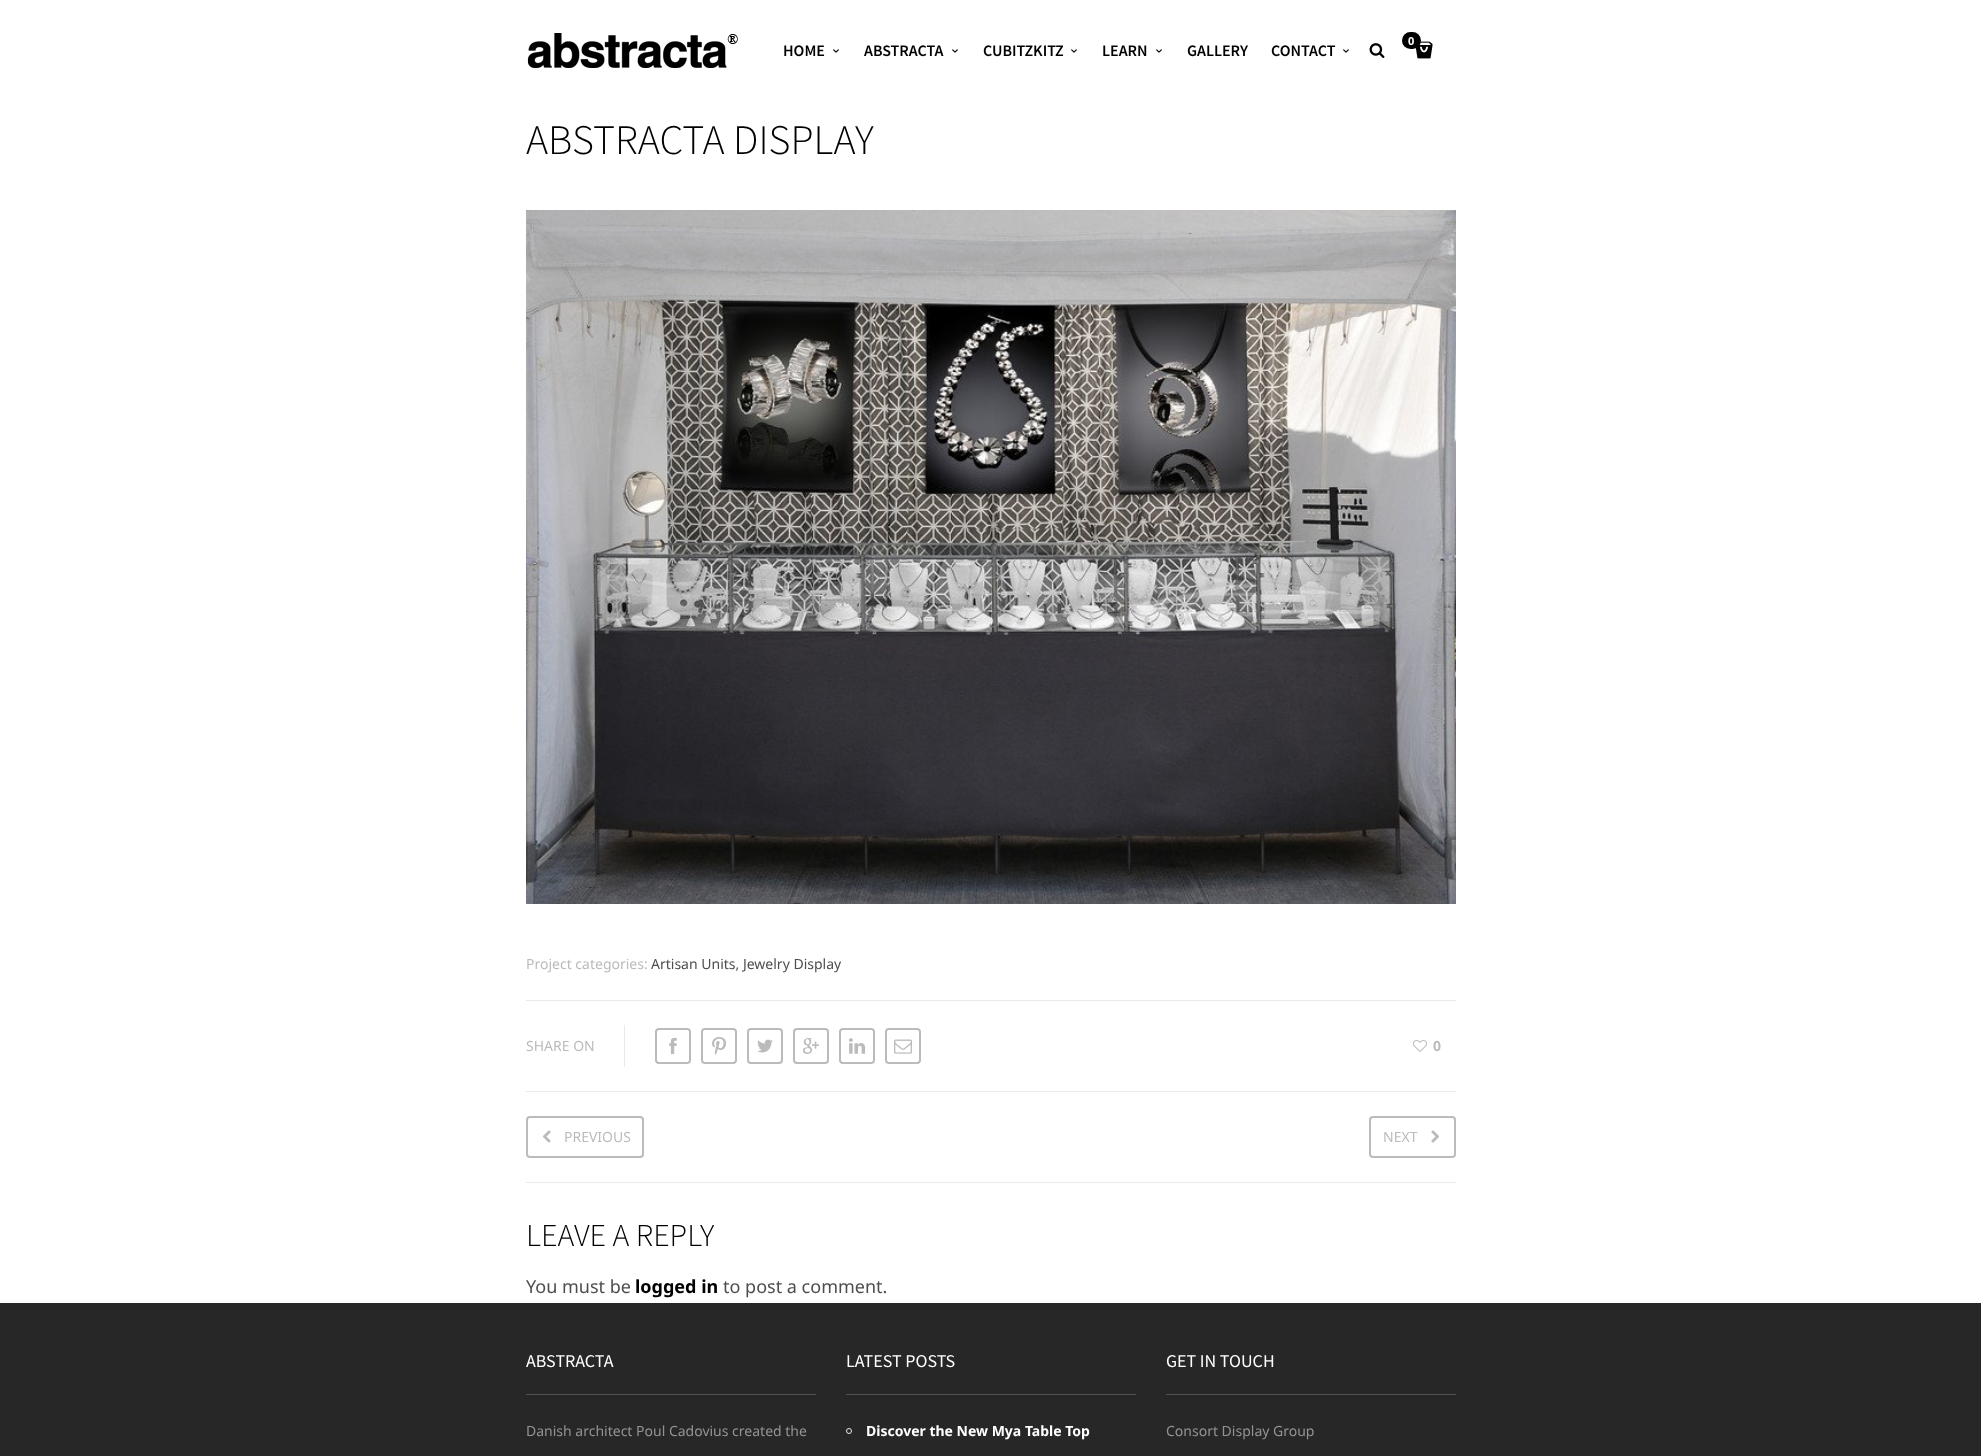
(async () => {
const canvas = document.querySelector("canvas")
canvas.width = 1981
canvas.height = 1456
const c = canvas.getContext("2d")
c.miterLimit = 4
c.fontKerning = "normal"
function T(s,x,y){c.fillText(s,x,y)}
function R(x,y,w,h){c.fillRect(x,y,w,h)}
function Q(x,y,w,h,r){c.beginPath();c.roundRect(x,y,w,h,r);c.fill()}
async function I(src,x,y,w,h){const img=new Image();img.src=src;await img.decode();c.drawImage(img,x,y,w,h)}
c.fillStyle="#fff"
R(0,0,1981,1456)
await I("1.png",527,33,211,35)
await I("2.png",1415,41,18,18)
c.fillStyle="#000"
Q(1402,32,19,17,8.5)
c.font="bold 11px Noto Sans"
c.fillStyle="#fff"
T("0",1408,45)
c.font="600 16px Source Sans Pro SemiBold"
c.fillStyle="#000"
T("HOME",783,56)
await I("3.png",833,49,6,4)
T("ABSTRACTA",864,56)
await I("3.png",952,49,6,4)
T("CUBITZKITZ",983,56)
await I("3.png",1071,49,6,4)
T("LEARN",1102,56)
await I("3.png",1156,49,6,4)
T("GALLERY",1187,56)
T("CONTACT",1271,56)
await I("3.png",1343,49,6,4)
await I("4.png",1369,43,16,15)
c.font="300 42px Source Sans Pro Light"
T("ABSTRACTA DISPLAY",526,154)
await I("5.png",526,210,930,694)
c.font="14px Noto Sans"
c.fillStyle="#bbb"
T("Project categories:",526,969)
c.fillStyle="#4d4d4d"
T("Artisan Units, Jewelry Display",651,969)
c.fillStyle="#eaeaea"
R(526,1000,930,1)
R(624,1025,1,42)
c.fillStyle="#bbb"
T("SHARE ON",526,1051)
c.beginPath()
c.roundRect(656,1029,34,34,3)
c.strokeStyle="#bbb"
c.lineWidth=2
c.stroke()
await I("6.png",669,1037,8,18)
c.beginPath()
c.roundRect(702,1029,34,34,3)
c.stroke()
await I("7.png",712,1037,14,18)
c.beginPath()
c.roundRect(748,1029,34,34,3)
c.stroke()
await I("8.png",757,1039,16,14)
c.beginPath()
c.roundRect(794,1029,34,34,3)
c.stroke()
await I("9.png",803,1038,16,16)
c.beginPath()
c.roundRect(840,1029,34,34,3)
c.stroke()
await I("10.png",849,1038,17,16)
c.beginPath()
c.roundRect(886,1029,34,34,3)
c.stroke()
await I("11.png",894,1039,18,15)
await I("12.png",1413,1040,14,12)
c.font="bold 14px Noto Sans"
T("0",1433,1051)
c.fillStyle="#eaeaea"
R(526,1091,930,1)
c.beginPath()
c.roundRect(527,1117,116,40,3)
c.stroke()
await I("13.png",543,1130,8,13)
c.font="14px Noto Sans"
c.fillStyle="#bbb"
T("PREVIOUS",564,1142)
c.beginPath()
c.roundRect(1370,1117,85,40,3)
c.stroke()
T("NEXT",1383,1142)
await I("14.png",1431,1130,8,13)
c.fillStyle="#eaeaea"
R(526,1182,930,1)
c.font="300 32px Source Sans Pro Light"
c.fillStyle="#000"
T("LEAVE A REPLY",526,1246)
c.font="18px Noto Sans"
c.fillStyle="#4d4d4d"
T("You must be",526,1293)
c.font="bold 18px Noto Sans"
c.fillStyle="#000"
T("logged in",635,1293)
c.font="18px Noto Sans"
c.fillStyle="#4d4d4d"
T("to post a comment.",723,1293)
c.fillStyle="#272727"
R(0,1303,1981,153)
c.fillStyle="#525252"
R(526,1394,290,1)
c.font="18px Source Sans Pro"
c.fillStyle="#fff"
T("ABSTRACTA",526,1367)
c.font="14px Noto Sans"
c.fillStyle="#939393"
T("Danish architect Poul Cadovius created the",526,1436)
c.fillStyle="#525252"
R(846,1394,290,1)
c.font="18px Source Sans Pro"
c.fillStyle="#fff"
T("LATEST POSTS",846,1367)
c.beginPath()
c.arc(849,1431,2.5,0,7)
c.strokeStyle="#e9e9e9"
c.lineWidth=1
c.stroke()
c.font="bold 14px Noto Sans"
T("Discover the New Mya Table Top",866,1436)
c.fillStyle="#525252"
R(1166,1394,290,1)
c.font="18px Source Sans Pro"
c.fillStyle="#fff"
T("GET IN TOUCH",1166,1367)
c.font="14px Noto Sans"
c.fillStyle="#939393"
T("Consort Display Group",1166,1436)
})()
